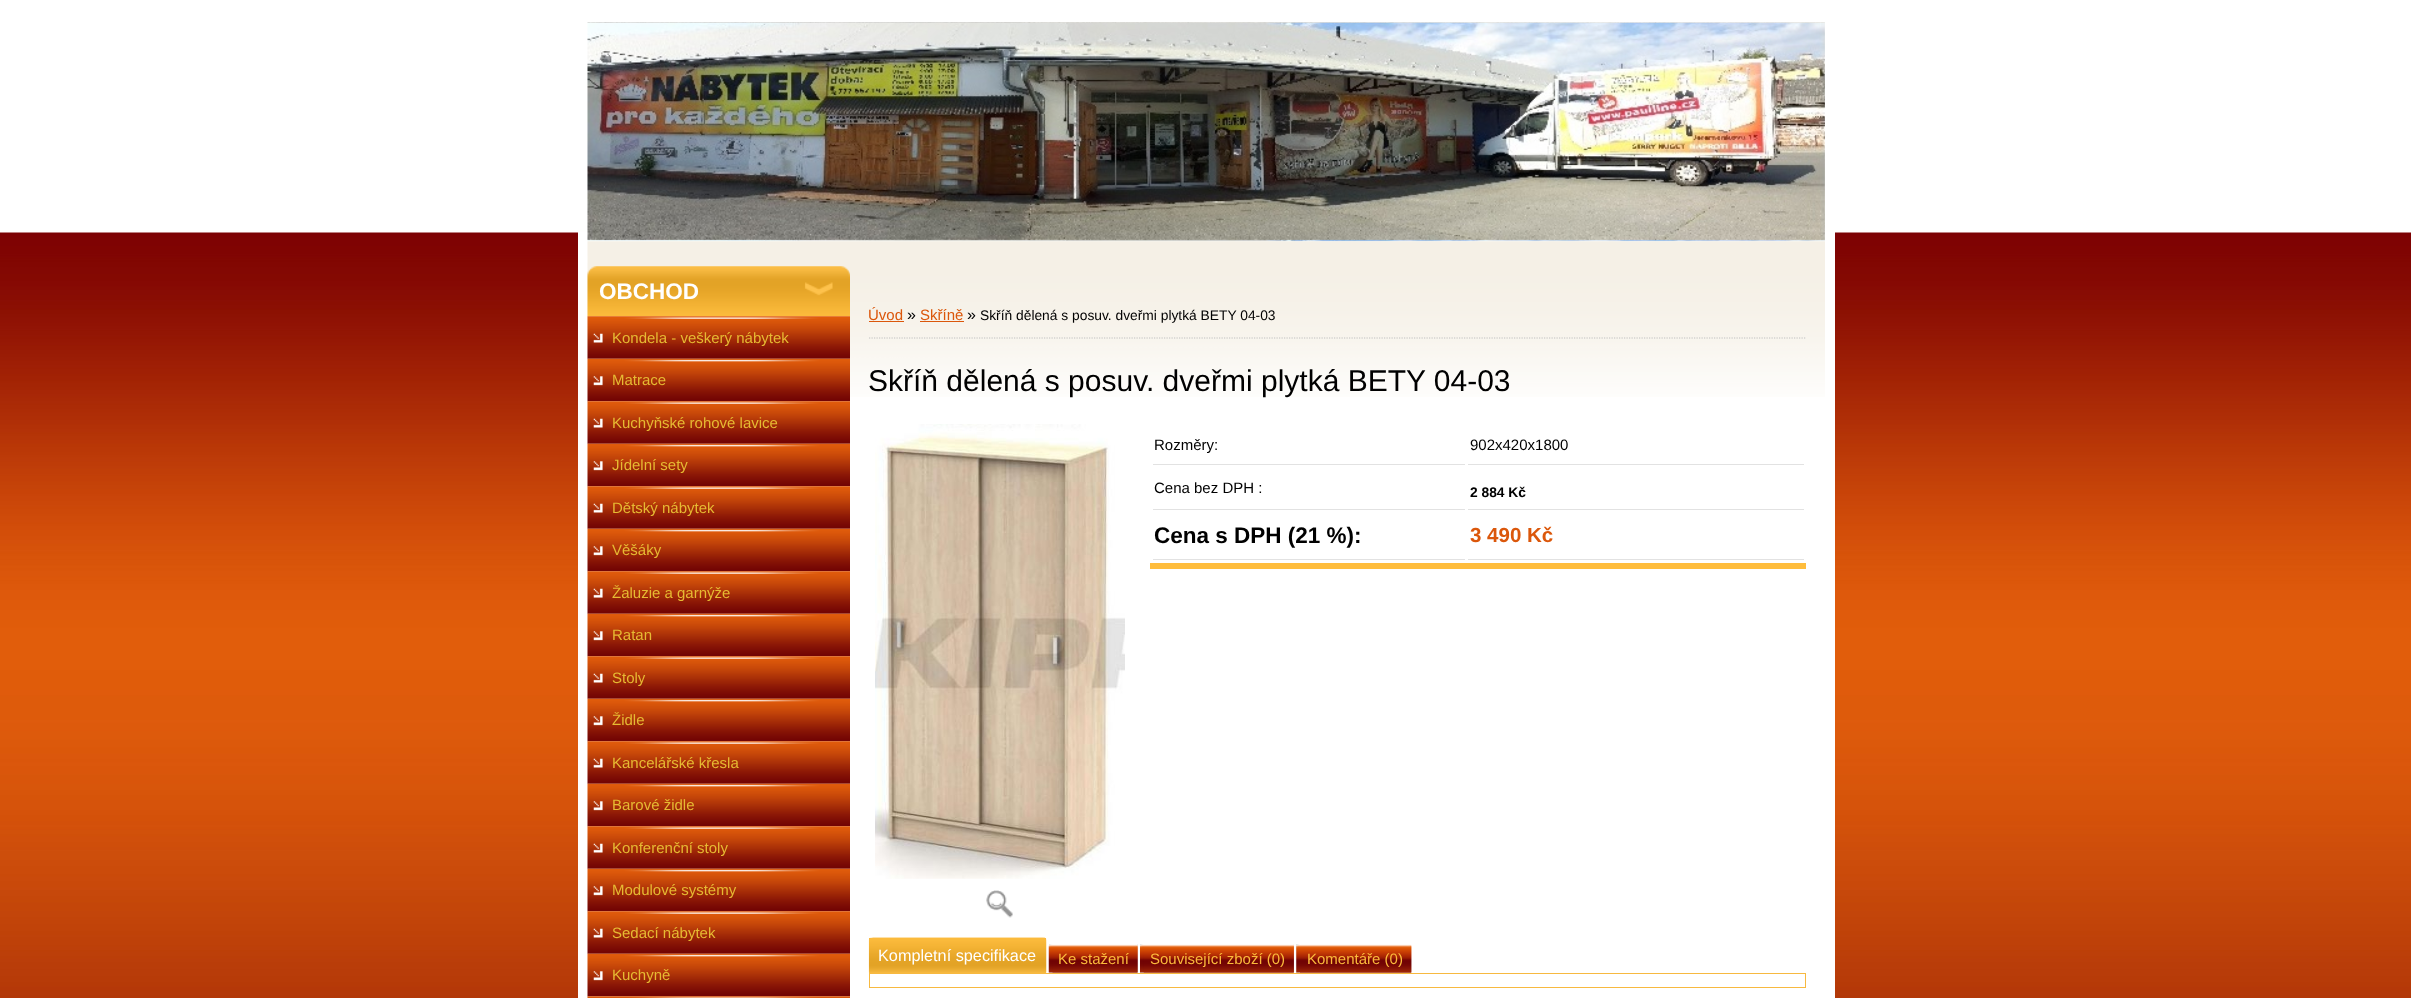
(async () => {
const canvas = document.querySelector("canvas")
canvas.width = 2411
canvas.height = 998
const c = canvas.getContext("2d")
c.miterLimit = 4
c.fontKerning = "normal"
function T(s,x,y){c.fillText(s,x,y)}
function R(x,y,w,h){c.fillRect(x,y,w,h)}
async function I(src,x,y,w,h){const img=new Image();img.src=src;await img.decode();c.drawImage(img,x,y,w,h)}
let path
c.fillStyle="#fff"
R(0,0,2411,998)
await I("1.png",0,0,2411,998)
R(578,232,1257,766)
await I("2.png",587,22,1238,220)
await I("3.png",587,241,1238,156)
await I("4.png",587,266,263,51)
c.font="bold 22.5px Liberation Sans"
T("OBCHOD",599,299)
await I("5.png",587,316,263,43)
c.font="15px Liberation Sans"
c.fillStyle="#e6ba33"
T("Kondela - veškerý nábytek",612,343)
await I("6.png",587,358,263,44)
T("Matrace",612,385)
await I("7.png",587,401,263,43)
T("Kuchyňské rohové lavice",612,428)
await I("8.png",587,443,263,44)
T("Jídelní sety",612,470)
await I("7.png",587,486,263,43)
T("Dětský nábytek",612,513)
await I("8.png",587,528,263,44)
T("Věšáky",612,555)
await I("9.png",587,571,263,43)
T("Žaluzie a garnýže",612,598)
await I("8.png",587,613,263,44)
T("Ratan",612,640)
await I("7.png",587,656,263,43)
T("Stoly",612,683)
await I("8.png",587,698,263,44)
T("Židle",612,725)
await I("7.png",587,741,263,43)
T("Kancelářské křesla",612,768)
await I("8.png",587,783,263,44)
T("Barové židle",612,810)
await I("7.png",587,826,263,43)
T("Konferenční stoly",612,853)
await I("8.png",587,868,263,44)
T("Modulové systémy",612,895)
await I("7.png",587,911,263,43)
T("Sedací nábytek",612,938)
await I("8.png",587,953,263,44)
T("Kuchyně",612,980)
await I("10.png",587,996,263,2)
path = new Path2D("M869 338h937")
c.strokeStyle="#c0c0c0"
c.lineWidth=1.2
c.setLineDash([1.25,1.25])
c.stroke(path)
c.fillStyle="#db570b"
T("Úvod",868,320)
R(869,321,35,1)
c.font="16px Liberation Sans"
c.fillStyle="#000"
T("»",907,320)
c.font="15px Liberation Sans"
c.fillStyle="#db570b"
T("Skříně",920,320)
R(920,321,44,1)
c.font="16px Liberation Sans"
c.fillStyle="#000"
T("»",967,320)
c.font="13.8px Liberation Sans"
T("Skříň dělená s posuv. dveřmi plytká BETY 04-03",980,320)
c.font="30px Liberation Sans"
T("Skříň dělená s posuv. dveřmi plytká BETY 04-03",868,391)
await I("11.png",875,424,250,455)
await I("12.png",986,890,27,28)
c.fillStyle="#ffbd3c"
R(1150,563,656,6)
c.fillStyle="#e2e2e2"
R(1153,464,312,1)
c.font="15px Liberation Sans"
c.fillStyle="#000"
T("Rozměry:",1154,450)
c.fillStyle="#e2e2e2"
R(1468,464,336,1)
c.fillStyle="#000"
T("902x420x1800",1470,450)
c.fillStyle="#e2e2e2"
R(1153,509,312,1)
c.fillStyle="#000"
T("Cena bez DPH :",1154,493)
c.fillStyle="#e2e2e2"
R(1468,509,336,1)
c.font="bold 13.8px Liberation Sans"
c.fillStyle="#000"
T("2 884 Kč",1470,497)
c.fillStyle="#e2e2e2"
R(1153,559,312,1)
c.font="bold 22.5px Liberation Sans"
c.fillStyle="#000"
T("Cena s DPH (21 %):",1154,543)
c.fillStyle="#e2e2e2"
R(1468,559,336,1)
c.font="bold 20.5px Liberation Sans"
c.fillStyle="#db570b"
T("3 490 Kč",1470,542)
c.fillStyle="#f7b940"
R(869,938,177,35)
await I("13.png",868,937,177,36)
await I("14.png",872,937,175,36)
c.font="16.25px Liberation Sans"
c.fillStyle="#fff"
T("Kompletní specifikace",878,961)
c.fillStyle="#e7e7e7"
R(1049,944,89,29)
await I("15.png",1048,944,90,29)
await I("16.png",1052,945,86,28)
c.font="15px Liberation Sans"
c.fillStyle="#fbba3b"
T("Ke stažení",1058,964)
c.fillStyle="#e7e7e7"
R(1140,944,154,29)
await I("17.png",1140,944,154,29)
await I("18.png",1143,945,151,28)
c.fillStyle="#fbba3b"
T("Související zboží (0)",1150,964)
c.fillStyle="#e7e7e7"
R(1296,944,115,29)
await I("19.png",1296,944,116,29)
await I("20.png",1300,945,112,28)
c.fillStyle="#fbba3b"
T("Komentáře (0)",1307,964)
c.strokeStyle="#f7b940"
c.lineWidth=1
c.setLineDash([])
c.strokeRect(869.5,973.5,936,14)
})()
